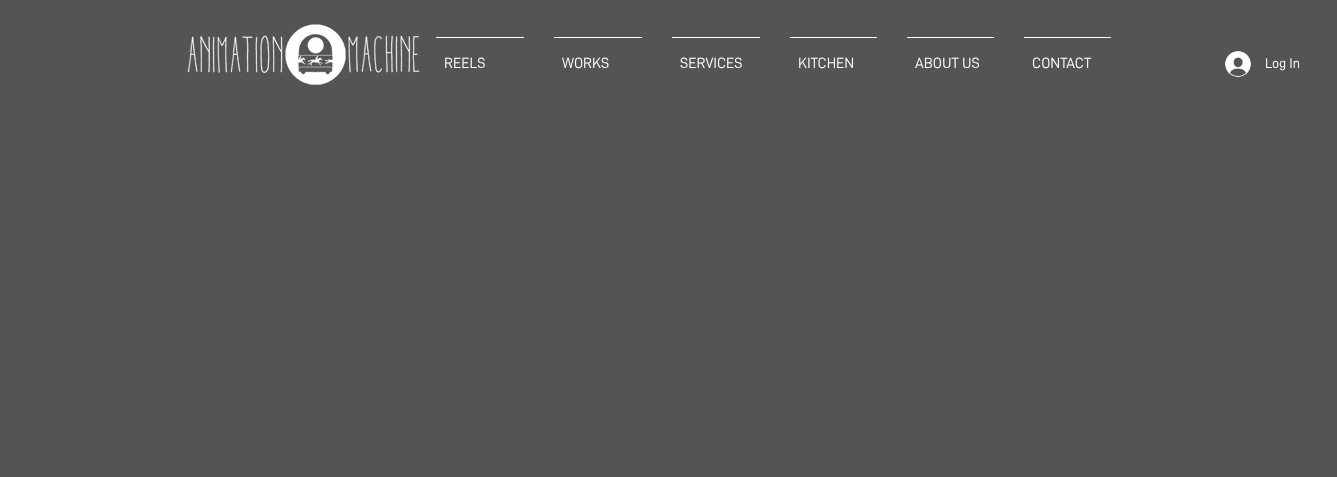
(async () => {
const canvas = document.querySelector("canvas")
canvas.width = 1337
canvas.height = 477
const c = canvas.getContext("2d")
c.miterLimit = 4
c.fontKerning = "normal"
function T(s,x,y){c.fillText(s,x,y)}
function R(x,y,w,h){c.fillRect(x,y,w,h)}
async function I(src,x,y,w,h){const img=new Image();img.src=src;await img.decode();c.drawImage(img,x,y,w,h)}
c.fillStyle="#545454"
R(0,0,1337,477)
await I("1.png",187,24,233,61)
c.fillStyle="#fff"
R(436,37,88,1)
c.font="15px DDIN"
T("REELS",444,68)
R(554,37,88,1)
T("WORKS",562,68)
R(672,37,88,1)
T("SERVICES",680,68)
R(790,37,87,1)
T("KITCHEN",798,68)
R(907,37,87,1)
T("ABOUT US",915,68)
R(1024,37,87,1)
T("CONTACT",1032,68)
await I("2.png",1225,51,26,26)
c.font="14px DDIN"
T("Log In",1265,68)
})()
